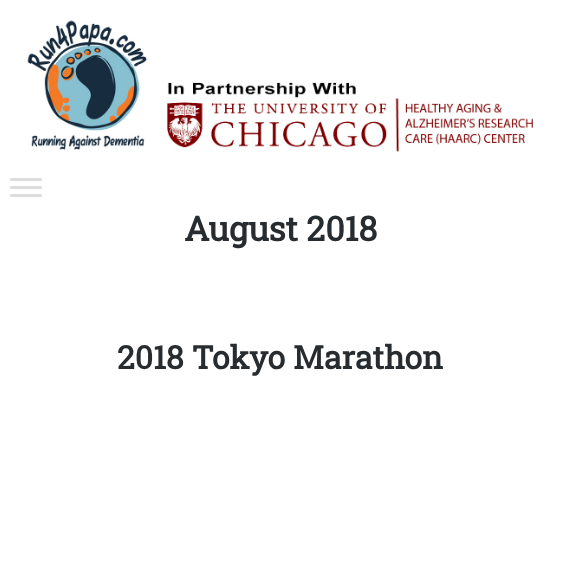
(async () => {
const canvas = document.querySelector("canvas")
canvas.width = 561
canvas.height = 566
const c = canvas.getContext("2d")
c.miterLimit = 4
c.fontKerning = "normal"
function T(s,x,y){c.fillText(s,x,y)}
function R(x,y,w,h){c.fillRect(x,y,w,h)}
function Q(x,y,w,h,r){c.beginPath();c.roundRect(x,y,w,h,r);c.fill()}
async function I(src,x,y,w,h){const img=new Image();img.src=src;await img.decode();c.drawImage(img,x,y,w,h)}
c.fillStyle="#fff"
R(0,0,561,566)
await I("1.png",27,20,506,132)
c.fillStyle="#ddd"
Q(10,178,32,3,1.5)
Q(10,186,32,3,1.5)
Q(10,194,32,3,1.5)
c.font="bold 34px Roboto Slab"
c.fillStyle="#272c30"
T("August 2018",184,241)
c.font="bold 32px Roboto Slab"
T("2018 Tokyo Marathon",117,369)
})()
